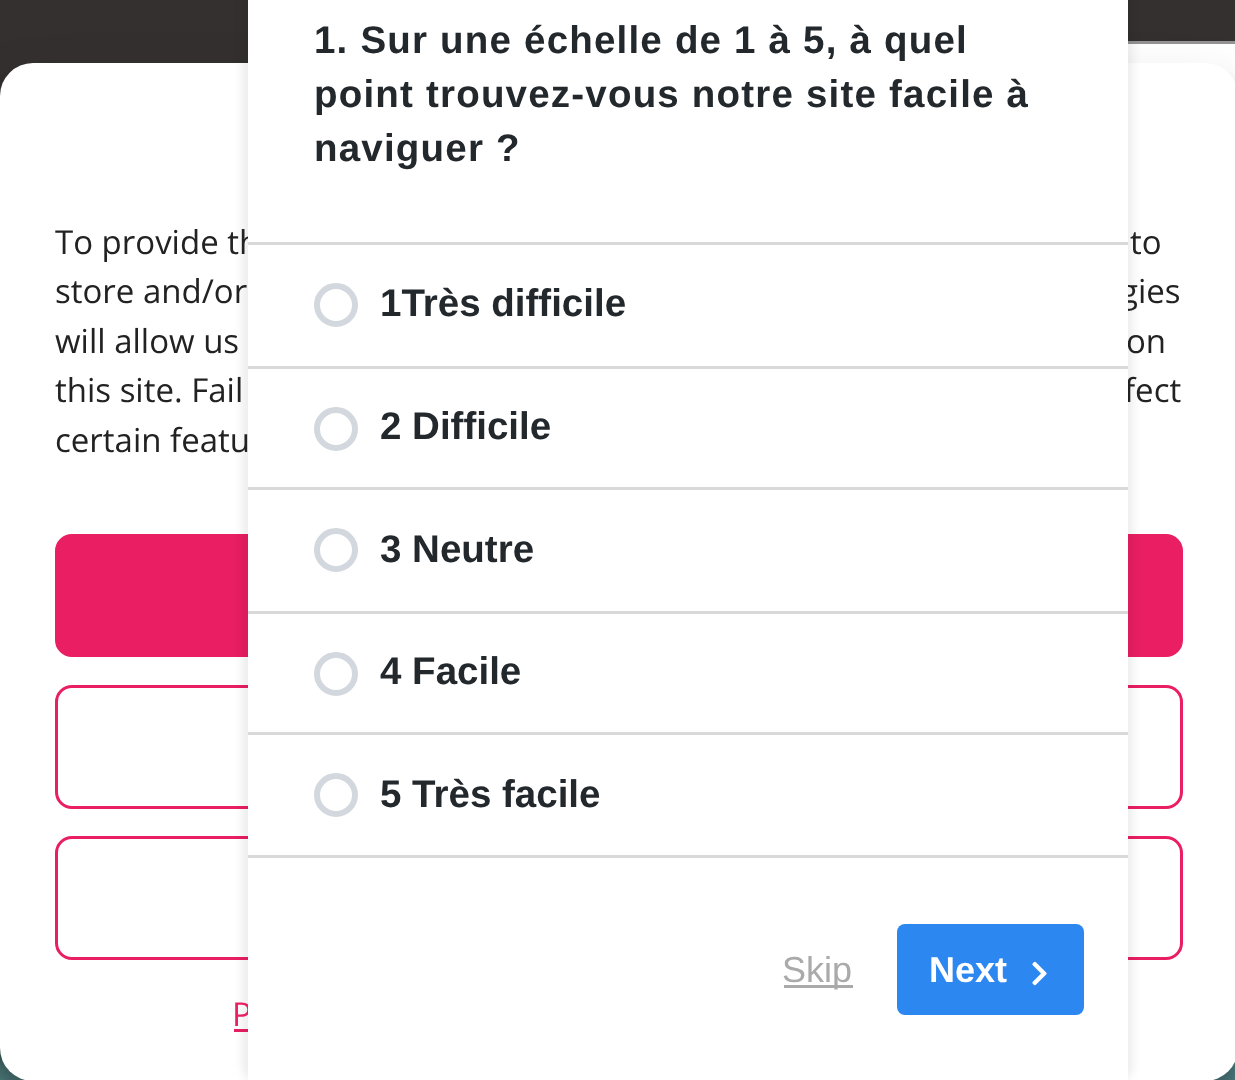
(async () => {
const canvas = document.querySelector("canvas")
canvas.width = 1235
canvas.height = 1080
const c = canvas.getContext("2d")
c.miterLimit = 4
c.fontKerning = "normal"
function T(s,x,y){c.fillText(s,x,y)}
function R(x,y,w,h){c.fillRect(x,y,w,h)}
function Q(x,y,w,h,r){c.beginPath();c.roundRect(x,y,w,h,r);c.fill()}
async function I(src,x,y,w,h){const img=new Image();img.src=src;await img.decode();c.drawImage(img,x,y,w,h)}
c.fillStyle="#fff"
R(0,0,1235,1080)
c.fillStyle="#34302f"
R(0,0,1235,96)
c.fillStyle="#fff"
R(1128,44,107,39)
c.strokeStyle="#949494"
c.lineWidth=3
c.strokeRect(1046.5,42.5,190,121)
await I("1.png",0,1048,1235,32)
c.fillStyle="#0000003b"
c.filter="blur(8px)"
c.beginPath()
c.roundRect(0,80,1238,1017,33)
c.fill()
c.filter="none"
c.fillStyle="#00000030"
c.filter="blur(27.5px)"
c.beginPath()
c.roundRect(0,91,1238,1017,33)
c.fill()
c.filter="none"
c.fillStyle="#fff"
Q(0,63,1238,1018,33)
c.fillStyle="#e91e63"
c.beginPath()
c.roundRect(56.5,535.5,1125,120,15.5)
c.fill()
c.strokeStyle="#e91e63"
c.stroke()
c.beginPath()
c.roundRect(56.5,686.5,1125,121,15.5)
c.stroke()
c.beginPath()
c.roundRect(56.5,837.5,1125,121,15.5)
c.stroke()
R(234,1029,14,3)
c.fillStyle="#00000012"
c.filter="blur(4px)"
c.beginPath()
c.roundRect(242,-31,891,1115,19)
c.fill()
c.filter="none"
c.font="33px Open Sans"
c.fillStyle="#222"
T("To provide th",55,254)
T("gies",1120,303)
T("on",1126,353)
T("fect",1124,402)
c.fillStyle="#e91e63"
T("P",232,1026)
c.fillStyle="#fff"
R(248,0,880,1080)
c.letterSpacing="1.2px"
c.font="bold 38.5px Liberation Sans"
c.fillStyle="#23282d"
T("1. Sur une échelle de 1 à 5, à quel",314,53)
T("point trouvez-vous notre site facile à",314,107)
T("naviguer ?",314,161)
c.fillStyle="#d9d9d9"
R(248,242,880,3)
R(248,855,880,3)
R(248,366,880,3)
c.beginPath()
c.arc(336,305,19,0,7)
c.strokeStyle="#d3d7de"
c.lineWidth=6
c.stroke()
c.letterSpacing="0px"
c.fillStyle="#23282d"
T("1Très difficile",380,316)
c.fillStyle="#d9d9d9"
R(248,487,880,3)
c.beginPath()
c.arc(336,429,19,0,7)
c.stroke()
c.fillStyle="#23282d"
T("2 Difficile",380,439)
c.fillStyle="#d9d9d9"
R(248,611,880,3)
c.beginPath()
c.arc(336,550,19,0,7)
c.stroke()
c.fillStyle="#23282d"
T("3 Neutre",380,562)
c.fillStyle="#d9d9d9"
R(248,732,880,3)
c.beginPath()
c.arc(336,674,19,0,7)
c.stroke()
c.fillStyle="#23282d"
T("4 Facile",380,684)
c.beginPath()
c.arc(336,795,19,0,7)
c.stroke()
T("5 Très facile",380,807)
c.fillStyle="#aaa"
R(784,985,69,3)
c.font="36px Liberation Sans"
T("Skip",782,982)
c.fillStyle="#2d87f1"
Q(897,924,187,91,8)
c.font="bold 36px Liberation Sans"
c.fillStyle="#fff"
T("Next",929,982)
await I("2.png",1032,961,15,25)
c.font="33px Open Sans"
c.fillStyle="#222"
T("to",1130,254)
T("store and/or",55,303)
T("will allow us",55,353)
T("this site. Fail",55,402)
T("certain featu",55,452)
})()
